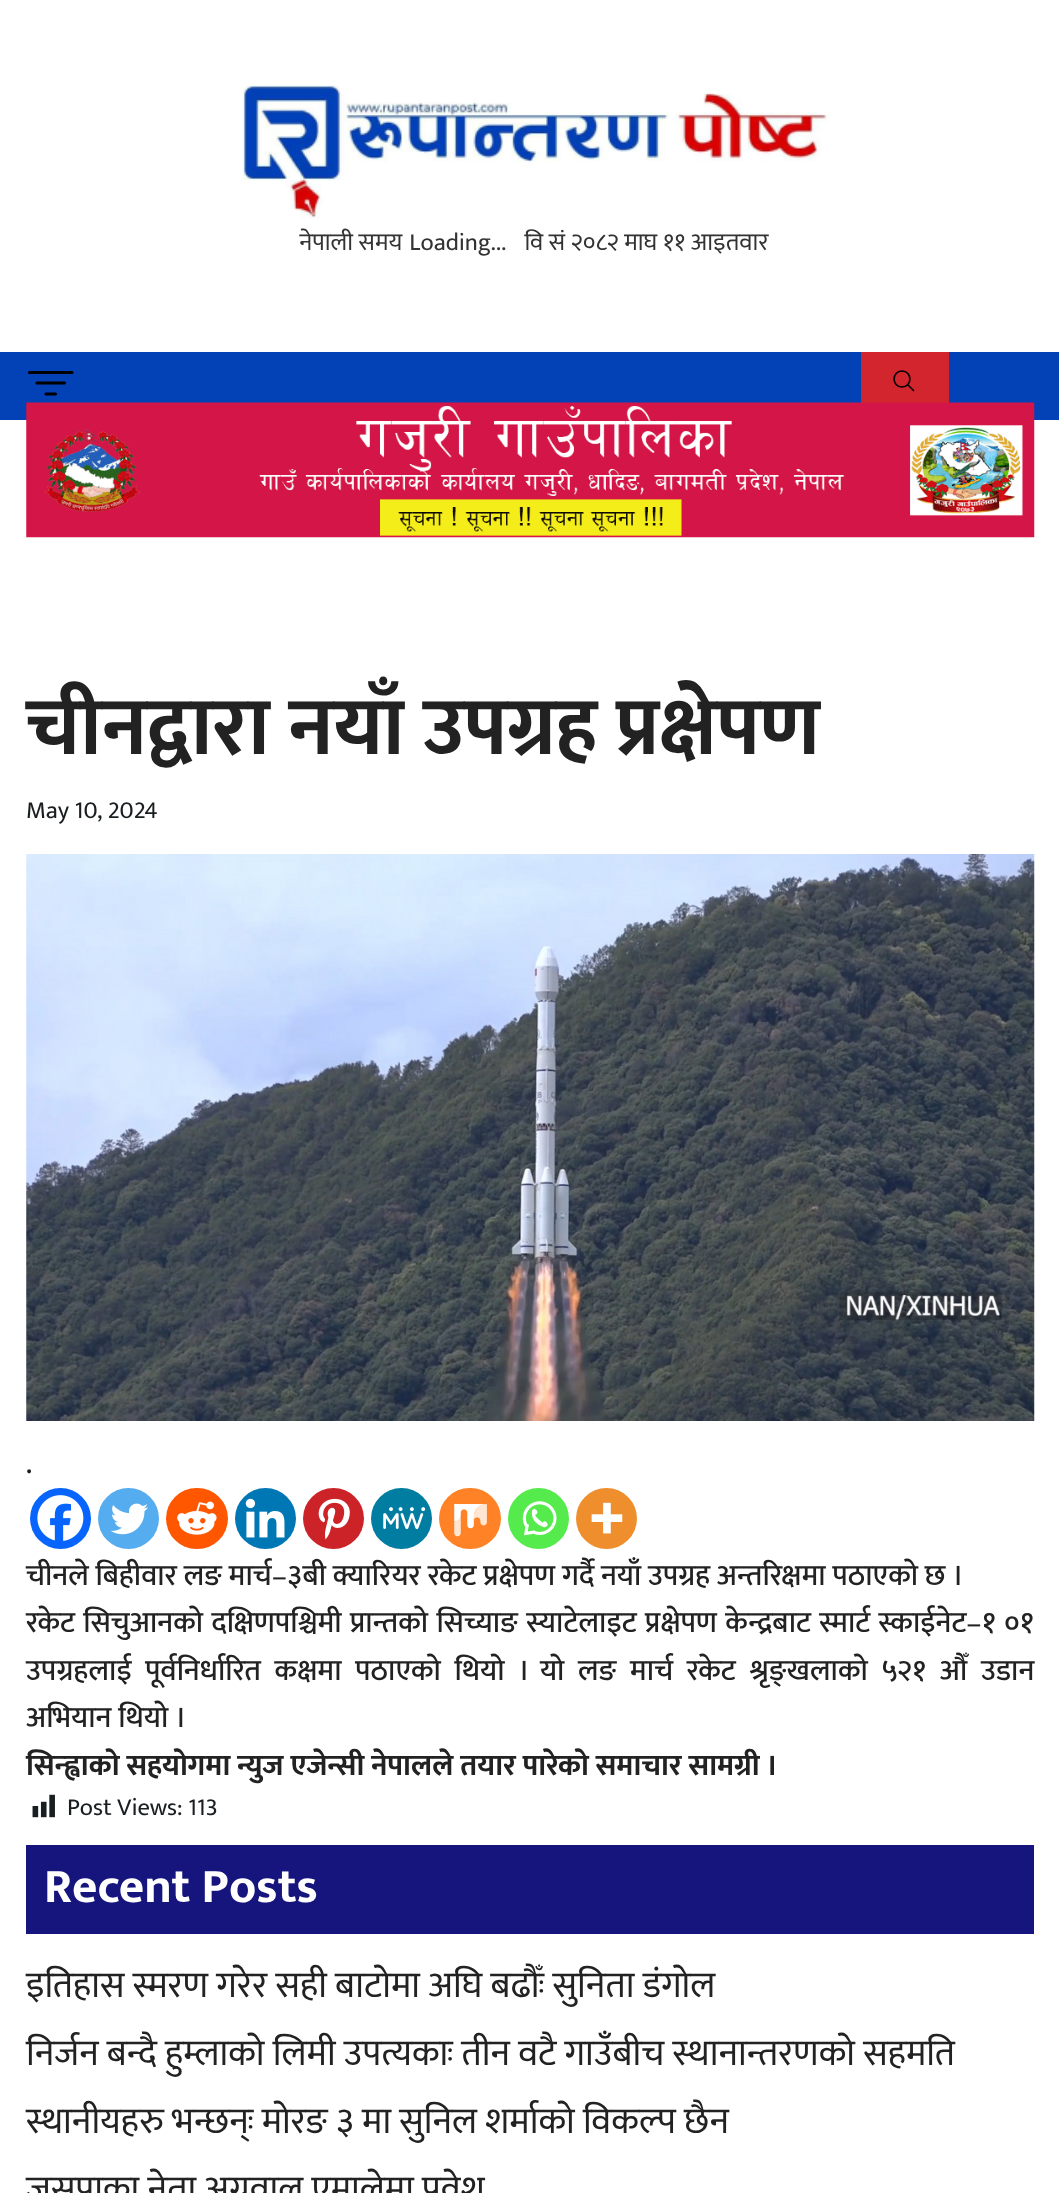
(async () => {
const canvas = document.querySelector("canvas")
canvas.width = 1059
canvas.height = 2193
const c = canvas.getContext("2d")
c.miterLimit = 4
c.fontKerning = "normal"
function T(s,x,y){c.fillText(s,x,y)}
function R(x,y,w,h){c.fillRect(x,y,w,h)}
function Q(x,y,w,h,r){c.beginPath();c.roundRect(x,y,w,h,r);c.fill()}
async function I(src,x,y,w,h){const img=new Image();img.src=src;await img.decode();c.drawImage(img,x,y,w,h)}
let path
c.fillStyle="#fff"
R(0,0,1059,2193)
await I("1.png",242,84,588,135)
await I("2.png",299,228,470,28)
c.fillStyle="#0241b6"
R(0,352,1059,68)
path = new Path2D("M29.5 372.5h42.5m-35 10.5h27.5m-18.5 11h9.5")
c.strokeStyle="#000"
c.lineWidth=3.1
c.lineCap="round"
c.lineJoin="round"
c.stroke(path)
c.fillStyle="#d3252e"
R(861,352,88,51)
path = new Path2D("M902 371c-10.5 0-10.5 16 0 16c10.5 0 10.5-16 0-16z")
c.lineWidth=1.6
c.lineCap="butt"
c.lineJoin="miter"
c.stroke(path)
path = new Path2D("M908 385l5.5 5.5")
c.lineCap="round"
c.stroke(path)
await I("3.png",26,402,1009,136)
c.font="bold 82.25px Mukta"
c.fillStyle="#222"
T("चीनद्वारा नयाँ उपग्रह प्रक्षेपण",26,754)
c.font="24.5px Mukta"
c.fillStyle="#191e21"
T("May 10, 2024",26,818)
await I("4.png",26,854,1009,567)
c.font="bold 24.5px Mukta"
T(".",26,1473)
c.fillStyle="#0765fe"
c.beginPath()
c.arc(60.5,1518.5,30.5,0,7)
c.fill()
await I("5.png",37,1495,47,46)
c.fillStyle="#55acee"
c.beginPath()
c.arc(128.5,1518.5,30.5,0,7)
c.fill()
await I("6.png",110,1503,39,32)
c.fillStyle="#ff5700"
Q(166,1488,62,61,30.5)
await I("7.png",177,1501,40,34)
c.fillStyle="#0077b5"
c.beginPath()
c.arc(265.5,1518.5,30.5,0,7)
c.fill()
await I("8.png",245,1498,40,40)
c.fillStyle="#cc2329"
c.beginPath()
c.arc(333.5,1518.5,30.5,0,7)
c.fill()
await I("9.png",318,1498,32,42)
c.fillStyle="#007da1"
c.beginPath()
c.arc(401.5,1518.5,30.5,0,7)
c.fill()
await I("10.png",383,1507,43,23)
c.fillStyle="#ff8226"
Q(439,1488,62,61,30.5)
await I("11.png",454,1504,33,33)
c.fillStyle="#55eb4c"
c.beginPath()
c.arc(538.5,1518.5,30.5,0,7)
c.fill()
await I("12.png",522,1501,35,35)
c.fillStyle="#ee8e2d"
c.beginPath()
c.arc(606.5,1518.5,30.5,0,7)
c.fill()
await I("13.png",591,1502,32,32)
c.font="500 29.75px Mukta"
c.fillStyle="#222"
T("चीनले बिहीवार लङ मार्च–३बी क्यारियर रकेट प्रक्षेपण गर्दै नयाँ उपग्रह अन्तरिक्षमा पठाएको छ ।",26,1585)
c.wordSpacing="1.6px"
T("रकेट सिचुआनको दक्षिणपश्चिमी प्रान्तको सिच्याङ स्याटेलाइट प्रक्षेपण केन्द्रबाट स्मार्ट स्काईनेट–१ ०१",26,1632)
c.wordSpacing="6.9px"
T("उपग्रहलाई पूर्वनिर्धारित कक्षमा पठाएको थियो । यो लङ मार्च रकेट श्रृङ्खलाको ५२१ औँ उडान",26,1680)
c.wordSpacing="0px"
T("अभियान थियो ।",26,1727)
c.font="bold 29.75px Mukta"
T("सिन्ह्वाको सहयोगमा न्युज एजेन्सी नेपालले तयार पारेको समाचार सामग्री ।",26,1775)
await I("14.png",32,1794,23,24)
c.font="24.5px Mukta"
c.fillStyle="#191e21"
T("Post Views: 113",67,1815)
c.fillStyle="#15157d"
R(26,1845,1008,89)
c.font="bold 49px Mukta"
c.fillStyle="#fff"
T("Recent Posts",44,1902)
c.font="36.75px Mukta"
c.fillStyle="#222"
T("इतिहास स्मरण गरेर सही बाटोमा अघि बढौँः सुनिता डंगोल",26,1997)
T("निर्जन बन्दै हुम्लाको लिमी उपत्यकाः तीन वटै गाउँबीच स्थानान्तरणको सहमति",26,2065)
T("स्थानीयहरु भन्छन्ः मोरङ ३ मा सुनिल शर्माको विकल्प छैन",26,2133)
T("जसपाका नेता अग्रवाल एमालेमा प्रवेश",26,2201)
})()
